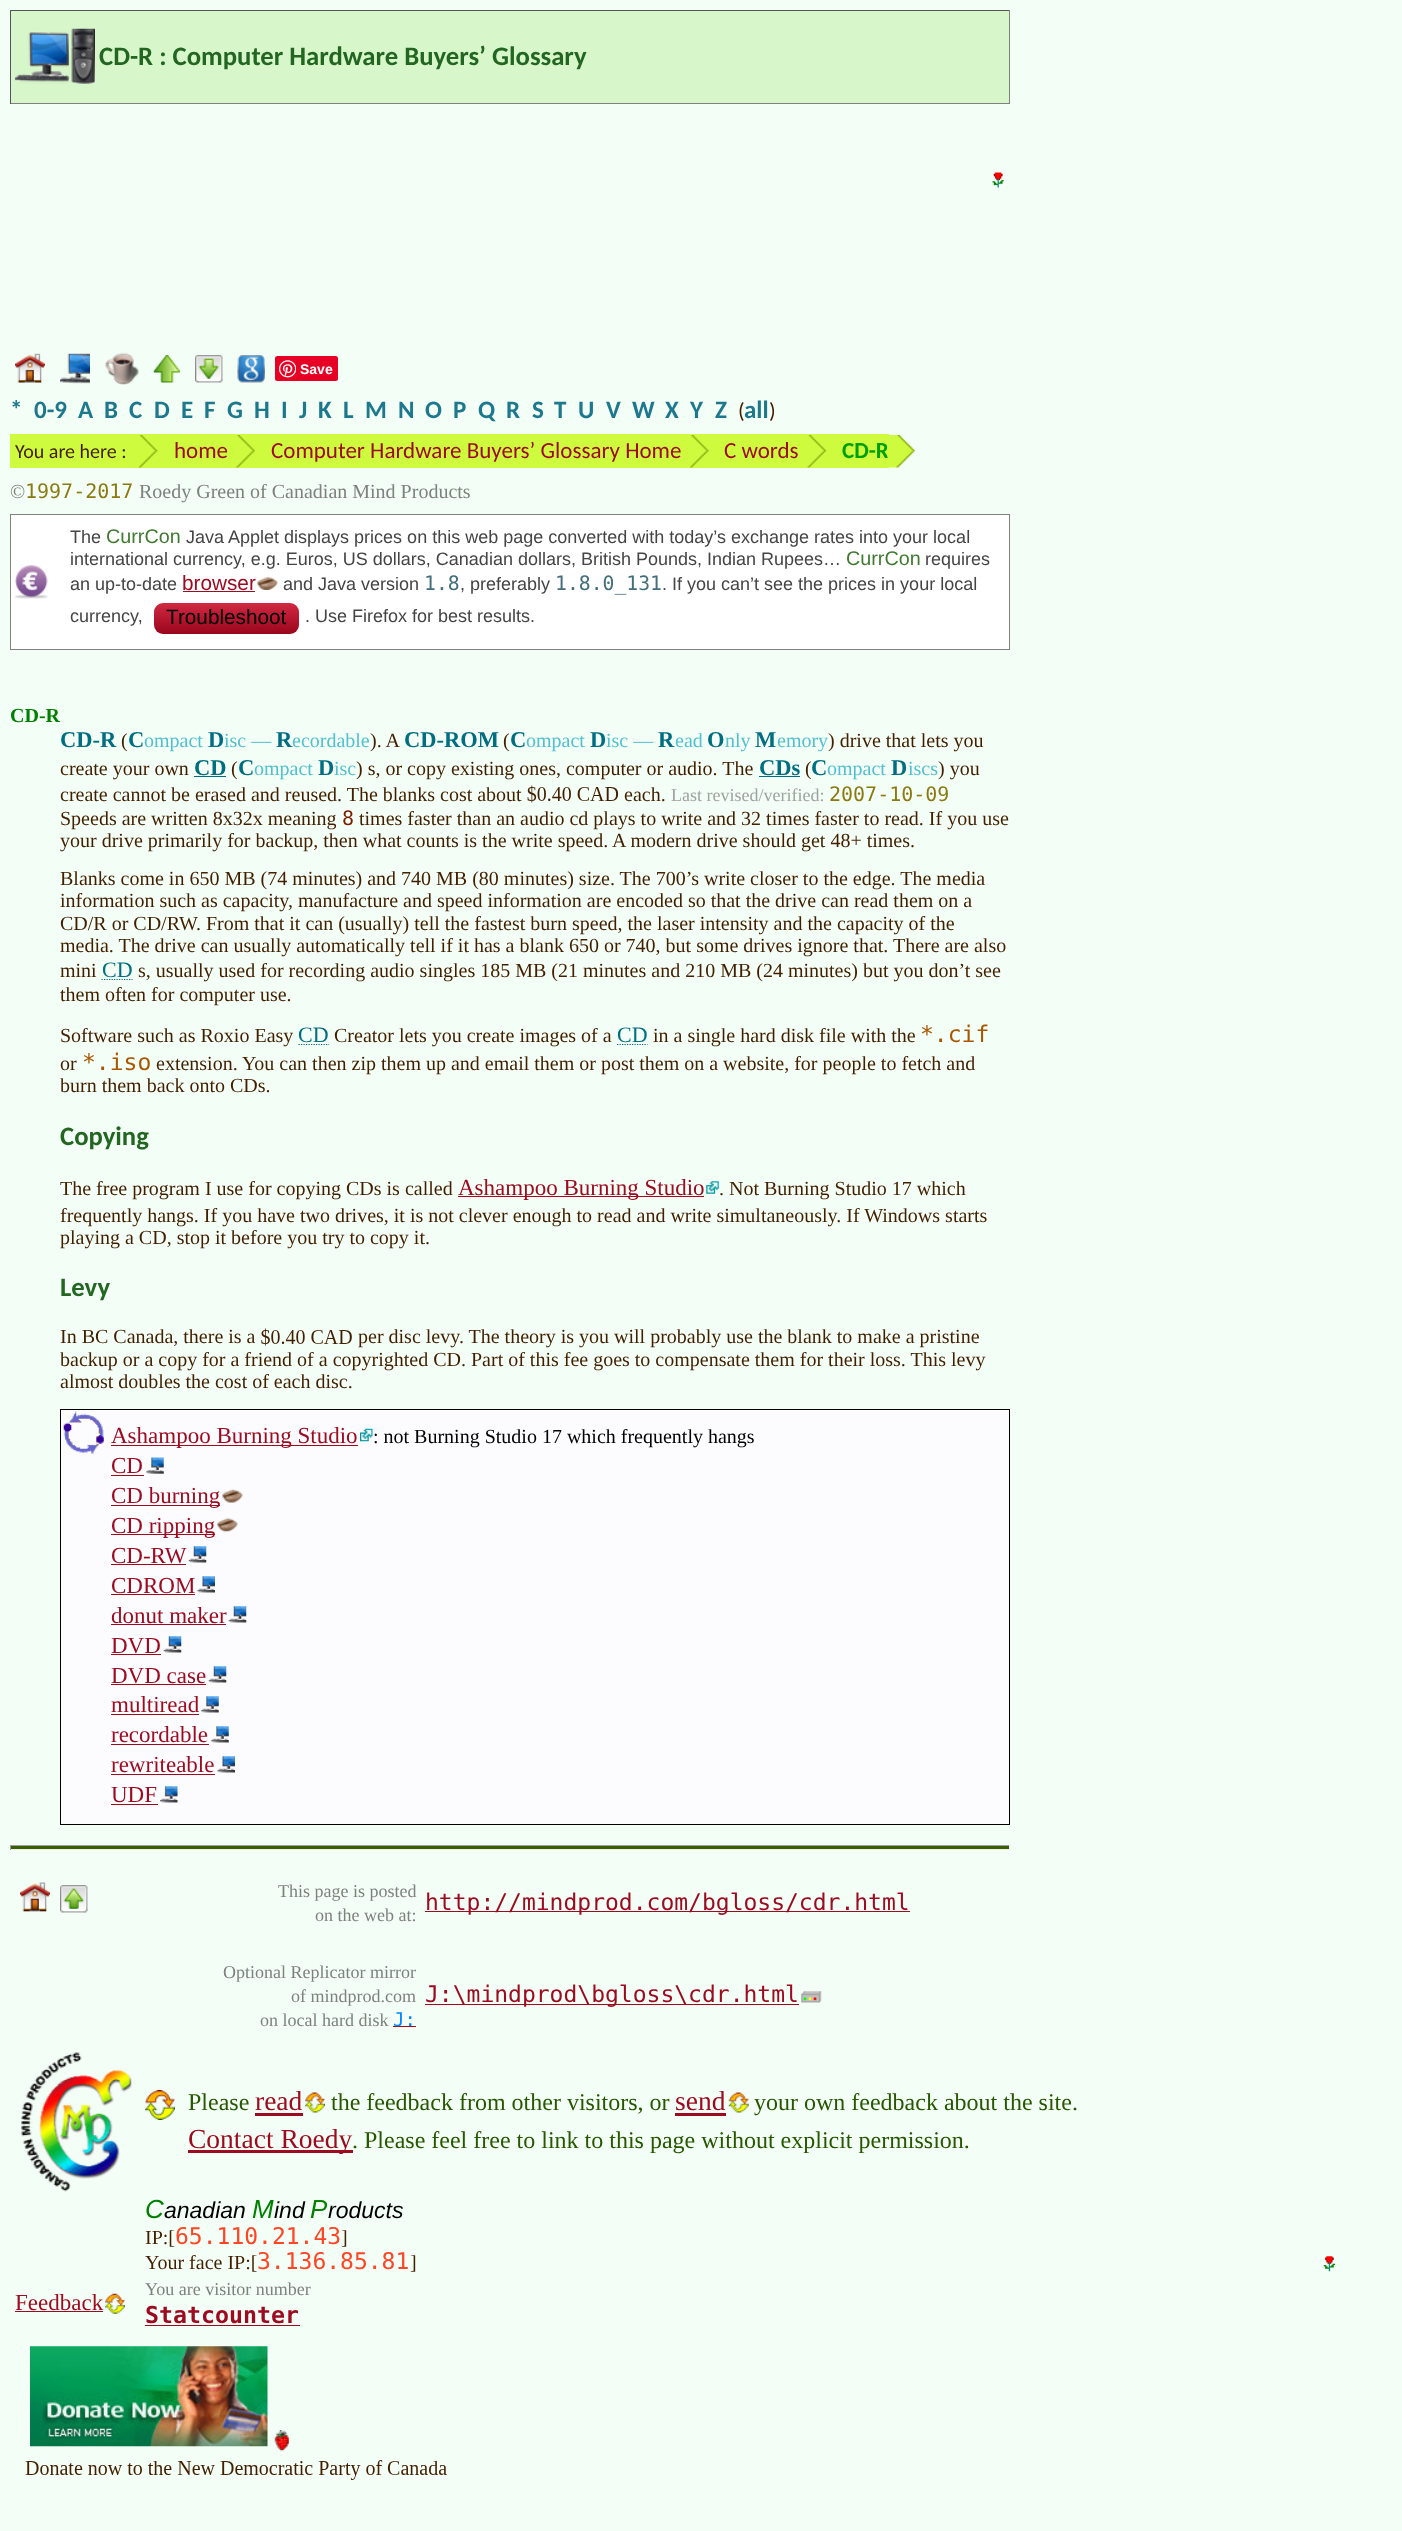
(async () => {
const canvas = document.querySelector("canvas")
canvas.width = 1402
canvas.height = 2531
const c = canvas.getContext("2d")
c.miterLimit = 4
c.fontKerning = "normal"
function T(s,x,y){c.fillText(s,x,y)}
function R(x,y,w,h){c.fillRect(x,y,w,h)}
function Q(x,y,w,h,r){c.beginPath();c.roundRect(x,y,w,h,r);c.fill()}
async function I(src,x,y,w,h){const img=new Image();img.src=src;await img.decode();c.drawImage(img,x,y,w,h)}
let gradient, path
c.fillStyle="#f3fff6"
R(0,0,1402,2531)
c.fillStyle="#d7f7ca"
R(11,11,998,92)
await I("1.png",15,28,80,56)
c.fillStyle="#555"
R(10,10,1000,1)
c.fillStyle="#808080"
R(1009,10,1,94)
R(10,103,1000,1)
c.fillStyle="#555"
R(10,10,1,94)
c.font="bold 26.7px Carlito"
c.fillStyle="#262"
T("CD-R : Computer Hardware Buyers’ Glossary",99,65)
await I("2.png",992,172,12,16)
await I("3.png",15,353,30,30)
await I("4.png",60,353,30,31)
await I("5.png",105,352,34,33)
await I("6.png",153,355,27,28)
await I("7.png",195,355,28,28)
await I("8.png",237,355,28,28)
c.fillStyle="#e60023"
Q(275,356,63,25,2.5)
await I("9.png",279,360,17,18)
c.font="bold 14px Liberation Sans"
c.fillStyle="#fff"
T("Save",300,374)
c.font="bold 25px Carlito"
c.fillStyle="#1d788d"
T("*",10,418)
T("0-9",34,418)
T("A",78,418)
T("B",104,418)
T("C",129,418)
T("D",154,418)
T("E",181,418)
T("F",204,418)
T("G",227,418)
T("H",254,418)
T("I",281,418)
T("J",299,418)
T("K",318,418)
T("L",343,418)
T("M",365,418)
T("N",398,418)
T("O",425,418)
T("P",453,418)
T("Q",478,418)
T("R",506,418)
T("S",532,418)
T("T",554,418)
T("U",578,418)
T("V",606,418)
T("W",632,418)
T("X",665,418)
T("Y",690,418)
T("Z",715,418)
c.font="22px Carlito"
c.fillStyle="#421f00"
T("(",738,418)
c.font="bold 25px Carlito"
c.fillStyle="#1d788d"
T("all",744,418)
c.font="22px Carlito"
c.fillStyle="#421f00"
T(")",769,418)
c.fillStyle="#cffb3f"
R(10,434,879,34)
c.font="20px Carlito"
c.fillStyle="#421f00"
T("You are here :",15,458)
await I("10.png",138,435,20,33)
c.font="23px Carlito"
c.fillStyle="#9d0b21"
T("home",174,458)
await I("11.png",236,435,19,33)
T("Computer Hardware Buyers’ Glossary Home",271,458)
await I("12.png",690,435,19,33)
T("C words",724,458)
await I("13.png",798,435,29,33)
c.font="bold 23px Carlito"
c.fillStyle="#00a000"
T("CD-R",842,458)
await I("14.png",887,435,28,33)
c.font="20px Liberation Serif"
c.fillStyle="#808080"
T("©",10,498)
c.font="20px DejaVu Sans Mono"
c.fillStyle="#8b7a11"
T("1997-2017",25,498)
c.font="20px Liberation Serif"
c.fillStyle="#808080"
T("Roedy Green of Canadian Mind Products",139,498)
c.fillStyle="#fff"
R(11,515,998,134)
await I("15.png",15,565,33,34)
c.strokeStyle="#808080"
c.strokeRect(10.5,514.5,999,135)
c.font="18px Liberation Sans"
c.fillStyle="#454545"
T("The",70,543)
c.font="19.75px Liberation Sans"
c.fillStyle="#417b31"
T("CurrCon",106,543)
c.font="18px Liberation Sans"
c.fillStyle="#454545"
T("Java Applet displays prices on this web page converted with today’s exchange rates into your local",186,543)
T("international currency, e.g. Euros, US dollars, Canadian dollars, British Pounds, Indian Rupees…",70,565)
c.font="19.75px Liberation Sans"
c.fillStyle="#417b31"
T("CurrCon",846,565)
c.font="18px Liberation Sans"
c.fillStyle="#454545"
T("requires",925,565)
T("an up-to-date",70,590)
c.font="20.75px Liberation Sans"
c.fillStyle="#9d0b21"
T("browser",182,590)
R(183,591,72,1)
await I("16.png",257,576,21,14)
c.font="18px Liberation Sans"
c.fillStyle="#454545"
T("and Java version",283,590)
c.font="19.75px DejaVu Sans Mono"
c.fillStyle="#436f7c"
T("1.8",424,590)
c.font="18px Liberation Sans"
c.fillStyle="#454545"
T(", preferably",460,590)
c.font="19.75px DejaVu Sans Mono"
c.fillStyle="#436f7c"
T("1.8.0_131",555,590)
c.font="18px Liberation Sans"
c.fillStyle="#454545"
T(". If you can’t see the prices in your local",662,590)
T("currency,",70,622)
gradient = c.createLinearGradient(226,603,226,634)
gradient.addColorStop(0,"#d12942")
gradient.addColorStop(1,"#9a051c")
c.fillStyle = gradient
Q(154,603,145,31,9)
c.font="20.75px Liberation Sans"
c.fillStyle="#000"
T("Troubleshoot",166,624)
c.font="18px Liberation Sans"
c.fillStyle="#454545"
T(". Use Firefox for best results.",305,622)
c.font="bold 20px Liberation Serif"
c.fillStyle="#008000"
T("CD-R",10,722)
c.font="bold 22.5px Liberation Serif"
c.fillStyle="#006e80"
T("CD-R",60,747)
c.font="20px Liberation Serif"
c.fillStyle="#421f00"
T("(",121,747)
c.font="bold 22.5px Liberation Serif"
c.fillStyle="#006e80"
T("C",128,747)
c.font="20px Liberation Serif"
c.fillStyle="#52c0d1"
T("ompact",144,747)
c.font="bold 22.5px Liberation Serif"
c.fillStyle="#006e80"
T("D",208,747)
c.font="20px Liberation Serif"
c.fillStyle="#52c0d1"
T("isc —",224,747)
c.font="bold 22.5px Liberation Serif"
c.fillStyle="#006e80"
T("R",276,747)
c.font="20px Liberation Serif"
c.fillStyle="#52c0d1"
T("ecordable",292,747)
c.fillStyle="#421f00"
T("). A",370,747)
c.font="bold 22.5px Liberation Serif"
c.fillStyle="#006e80"
T("CD-ROM",404,747)
c.font="20px Liberation Serif"
c.fillStyle="#421f00"
T("(",503,747)
c.font="bold 22.5px Liberation Serif"
c.fillStyle="#006e80"
T("C",510,747)
c.font="20px Liberation Serif"
c.fillStyle="#52c0d1"
T("ompact",526,747)
c.font="bold 22.5px Liberation Serif"
c.fillStyle="#006e80"
T("D",590,747)
c.font="20px Liberation Serif"
c.fillStyle="#52c0d1"
T("isc —",606,747)
c.font="bold 22.5px Liberation Serif"
c.fillStyle="#006e80"
T("R",658,747)
c.font="20px Liberation Serif"
c.fillStyle="#52c0d1"
T("ead",675,747)
c.font="bold 22.5px Liberation Serif"
c.fillStyle="#006e80"
T("O",707,747)
c.font="20px Liberation Serif"
c.fillStyle="#52c0d1"
T("nly",725,747)
c.font="bold 22.5px Liberation Serif"
c.fillStyle="#006e80"
T("M",755,747)
c.font="20px Liberation Serif"
c.fillStyle="#52c0d1"
T("emory",777,747)
c.fillStyle="#421f00"
T(") drive that lets you",828,747)
T("create your own",60,775)
c.font="bold 22.5px Liberation Serif"
c.fillStyle="#006e80"
T("CD",194,775)
R(194,776,32,1)
c.font="20px Liberation Serif"
c.fillStyle="#421f00"
T("(",231,775)
c.font="bold 22.5px Liberation Serif"
c.fillStyle="#006e80"
T("C",238,775)
c.font="20px Liberation Serif"
c.fillStyle="#52c0d1"
T("ompact",254,775)
c.font="bold 22.5px Liberation Serif"
c.fillStyle="#006e80"
T("D",318,775)
c.font="20px Liberation Serif"
c.fillStyle="#52c0d1"
T("isc",334,775)
c.fillStyle="#421f00"
T(") s, or copy existing ones, computer or audio. The",356,775)
c.font="bold 22.5px Liberation Serif"
c.fillStyle="#006e80"
T("CDs",759,775)
R(759,776,41,1)
c.font="20px Liberation Serif"
c.fillStyle="#421f00"
T("(",805,775)
c.font="bold 22.5px Liberation Serif"
c.fillStyle="#006e80"
T("C",811,775)
c.font="20px Liberation Serif"
c.fillStyle="#52c0d1"
T("ompact",827,775)
c.font="bold 22.5px Liberation Serif"
c.fillStyle="#006e80"
T("D",891,775)
c.font="20px Liberation Serif"
c.fillStyle="#52c0d1"
T("iscs",908,775)
c.fillStyle="#421f00"
T(") you",938,775)
T("create cannot be erased and reused. The blanks cost about",60,801)
await I("17.png",527,785,92,18)
T("each.",624,801)
c.font="18px Liberation Serif"
c.fillStyle="#a1a1a1"
T("Last revised/verified:",671,801)
c.font="20px DejaVu Sans Mono"
c.fillStyle="#8b7a11"
T("2007-10-09",829,801)
c.font="20px Liberation Serif"
c.fillStyle="#421f00"
T("Speeds are written 8x32x meaning",60,825)
c.font="20px DejaVu Sans Mono"
c.fillStyle="#7a1a00"
T("8",342,825)
c.font="20px Liberation Serif"
c.fillStyle="#421f00"
T("times faster than an audio cd plays to write and 32 times faster to read. If you use",359,825)
T("your drive primarily for backup, then what counts is the write speed. A modern drive should get 48+ times.",60,847)
T("Blanks come in 650 MB (74 minutes) and 740 MB (80 minutes) size. The 700’s write closer to the edge. The media",60,885)
T("information such as capacity, manufacture and speed information are encoded so that the drive can read them on a",60,907)
T("CD/R or CD/RW. From that it can (usually) tell the fastest burn speed, the laser intensity and the capacity of the",60,930)
T("media. The drive can usually automatically tell if it has a blank 650 or 740, but some drives ignore that. There are also",60,952)
T("mini",60,977)
c.font="22px Liberation Serif"
c.fillStyle="#006e80"
T("CD",102,977)
path = new Path2D("M101.5 979.5h31")
c.strokeStyle="#006e80"
c.lineWidth=1.2
c.setLineDash([1.25,1.25])
c.stroke(path)
c.font="20px Liberation Serif"
c.fillStyle="#421f00"
T("s, usually used for recording audio singles 185 MB (21 minutes and 210 MB (24 minutes) but you don’t see",138,977)
T("them often for computer use.",60,1001)
T("Software such as Roxio Easy",60,1042)
c.font="22px Liberation Serif"
c.fillStyle="#006e80"
T("CD",298,1042)
path = new Path2D("M298.5 1044.5h30.5")
c.stroke(path)
c.font="20px Liberation Serif"
c.fillStyle="#421f00"
T("Creator lets you create images of a",334,1042)
c.font="22px Liberation Serif"
c.fillStyle="#006e80"
T("CD",617,1042)
path = new Path2D("M617 1044.5h30.5")
c.stroke(path)
c.font="20px Liberation Serif"
c.fillStyle="#421f00"
T("in a single hard disk file with the",653,1042)
c.font="23px DejaVu Sans Mono"
c.fillStyle="#a50"
T("*.cif",920,1042)
c.font="20px Liberation Serif"
c.fillStyle="#421f00"
T("or",60,1070)
c.font="23px DejaVu Sans Mono"
c.fillStyle="#a50"
T("*.iso",82,1070)
c.font="20px Liberation Serif"
c.fillStyle="#421f00"
T("extension. You can then zip them up and email them or post them on a website, for people to fetch and",156,1070)
T("burn them back onto CDs.",60,1092)
c.font="bold 26.7px Carlito"
c.fillStyle="#262"
T("Copying",60,1145)
c.font="20px Liberation Serif"
c.fillStyle="#421f00"
T("The free program I use for copying CDs is called",60,1195)
c.fillStyle="#9d0b21"
R(458,1196,246,1)
c.font="23px Liberation Serif"
T("Ashampoo Burning Studio",458,1195)
await I("18.png",706,1181,13,13)
c.font="20px Liberation Serif"
c.fillStyle="#421f00"
T(". Not Burning Studio 17 which",719,1195)
T("frequently hangs. If you have two drives, it is not clever enough to read and write simultaneously. If Windows starts",60,1222)
T("playing a CD, stop it before you try to copy it.",60,1244)
c.font="bold 26.7px Carlito"
c.fillStyle="#262"
T("Levy",60,1296)
c.font="20px Liberation Serif"
c.fillStyle="#421f00"
T("In BC Canada, there is a",60,1343)
await I("19.png",261,1328,91,18)
T("per disc levy. The theory is you will probably use the blank to make a pristine",358,1343)
T("backup or a copy for a friend of a copyrighted CD. Part of this fee goes to compensate them for their loss. This levy",60,1366)
T("almost doubles the cost of each disc.",60,1388)
c.fillStyle="#fcfcff"
R(61,1410,948,414)
await I("20.png",63,1411,41,43)
c.strokeStyle="#000"
c.lineWidth=1
c.setLineDash([])
c.strokeRect(60.5,1409.5,949,415)
c.fillStyle="#9d0b21"
R(111,1445,247,1)
c.font="23px Liberation Serif"
T("Ashampoo Burning Studio",111,1443)
await I("21.png",360,1428,13,14)
c.font="20px Liberation Serif"
c.fillStyle="#000"
T(": not Burning Studio 17 which frequently hangs",373,1443)
c.font="23px Liberation Serif"
c.fillStyle="#9d0b21"
T("CD",111,1473)
R(111,1475,33,1)
await I("22.png",146,1457,18,17)
R(111,1505,109,1)
T("CD burning",111,1503)
await I("23.png",222,1488,21,15)
R(111,1534,104,1)
T("CD ripping",111,1533)
await I("24.png",217,1517,21,15)
T("CD-RW",111,1563)
R(111,1564,75,1)
await I("25.png",188,1546,19,17)
T("CDROM",111,1593)
R(111,1594,84,1)
await I("26.png",197,1576,18,17)
T("donut maker",111,1623)
R(111,1624,115,1)
await I("25.png",228,1606,19,17)
T("DVD",111,1653)
R(111,1654,50,1)
await I("25.png",163,1636,19,17)
T("DVD case",111,1683)
R(111,1684,95,1)
await I("25.png",208,1666,19,17)
T("multiread",111,1712)
R(111,1714,88,1)
await I("27.png",201,1696,18,17)
T("recordable",111,1742)
R(111,1744,98,1)
await I("27.png",211,1726,18,17)
T("rewriteable",111,1772)
R(111,1774,104,1)
await I("26.png",217,1756,18,17)
T("UDF",111,1802)
R(111,1804,47,1)
await I("28.png",160,1786,18,17)
c.fillStyle="#396000"
R(10,1846,1000,3)
c.fillStyle="#9f9f9f"
R(10,1845,1000,1)
c.fillStyle="#eee"
R(1009,1845,1,5)
R(10,1849,1000,1)
c.fillStyle="#9f9f9f"
R(10,1845,1,5)
await I("29.png",20,1882,30,30)
await I("30.png",60,1885,28,28)
c.font="18px Liberation Serif"
c.fillStyle="#808080"
T("This page is posted",278,1897)
T("on the web at:",315,1921)
c.fillStyle="#9d0b21"
R(425,1911,485,1)
c.font="23px DejaVu Sans Mono"
T("http://mindprod.com/bgloss/cdr.html",425,1910)
c.font="18px Liberation Serif"
c.fillStyle="#808080"
T("Optional Replicator mirror",223,1978)
T("of mindprod.com",291,2002)
T("on local hard disk",260,2026)
c.fillStyle="#9d0b21"
R(393,2026,23,1)
c.font="19px DejaVu Sans Mono"
c.fillStyle="#0986ff"
T("J:",393,2026)
c.fillStyle="#9d0b21"
R(425,2004,374,1)
c.font="23px DejaVu Sans Mono"
T("J:\\mindprod\\bgloss\\cdr.html",425,2002)
await I("31.png",801,1991,21,12)
await I("32.png",20,2052,112,140)
await I("33.png",145,2090,30,30)
c.font="24px Liberation Serif"
c.fillStyle="#275700"
T("Please",188,2110)
c.font="27.5px Liberation Serif"
c.fillStyle="#9d0b21"
T("read",255,2110)
R(255,2113,48,3)
await I("34.png",305,2092,20,21)
c.font="24px Liberation Serif"
c.fillStyle="#275700"
T("the feedback from other visitors, or",331,2110)
c.font="27.5px Liberation Serif"
c.fillStyle="#9d0b21"
T("send",675,2110)
R(675,2113,51,3)
await I("35.png",728,2092,21,21)
c.font="24px Liberation Serif"
c.fillStyle="#275700"
T("your own feedback about the site.",754,2110)
c.fillStyle="#9d0b21"
R(188,2150,165,3)
c.font="27.5px Liberation Serif"
T("Contact Roedy",188,2148)
c.font="24px Liberation Serif"
c.fillStyle="#275700"
T(". Please feel free to link to this page without explicit permission.",352,2148)
c.font="italic 26px Liberation Sans"
c.fillStyle="#008000"
T("C",145,2218)
c.font="italic 23px Liberation Sans"
c.fillStyle="#000"
T("anadian",164,2218)
c.font="italic 26px Liberation Sans"
c.fillStyle="#008000"
T("M",252,2218)
c.font="italic 23px Liberation Sans"
c.fillStyle="#000"
T("ind",274,2218)
c.font="italic 26px Liberation Sans"
c.fillStyle="#008000"
T("P",310,2218)
c.font="italic 23px Liberation Sans"
c.fillStyle="#000"
T("roducts",328,2218)
c.font="20px Liberation Serif"
c.fillStyle="#421f00"
T("IP:[",145,2244)
c.font="23px DejaVu Sans Mono"
c.fillStyle="#ff4524"
T("65.110.21.43",175,2244)
c.font="20px Liberation Serif"
c.fillStyle="#421f00"
T("]",341,2244)
T("Your face IP:[",145,2269)
c.font="23px DejaVu Sans Mono"
c.fillStyle="#ff4524"
T("3.136.85.81",257,2269)
c.font="20px Liberation Serif"
c.fillStyle="#421f00"
T("]",410,2269)
await I("36.png",1323,2256,12,16)
c.font="23px Liberation Serif"
c.fillStyle="#9d0b21"
T("Feedback",15,2310)
R(15,2311,88,1)
await I("37.png",105,2293,20,21)
c.font="18px Liberation Serif"
c.fillStyle="#808080"
T("You are visitor number",145,2295)
c.font="bold 23.25px DejaVu Sans Mono"
c.fillStyle="#9d0b21"
T("Statcounter",145,2323)
R(145,2325,155,1)
await I("38.png",25,2346,422,134)
})()
